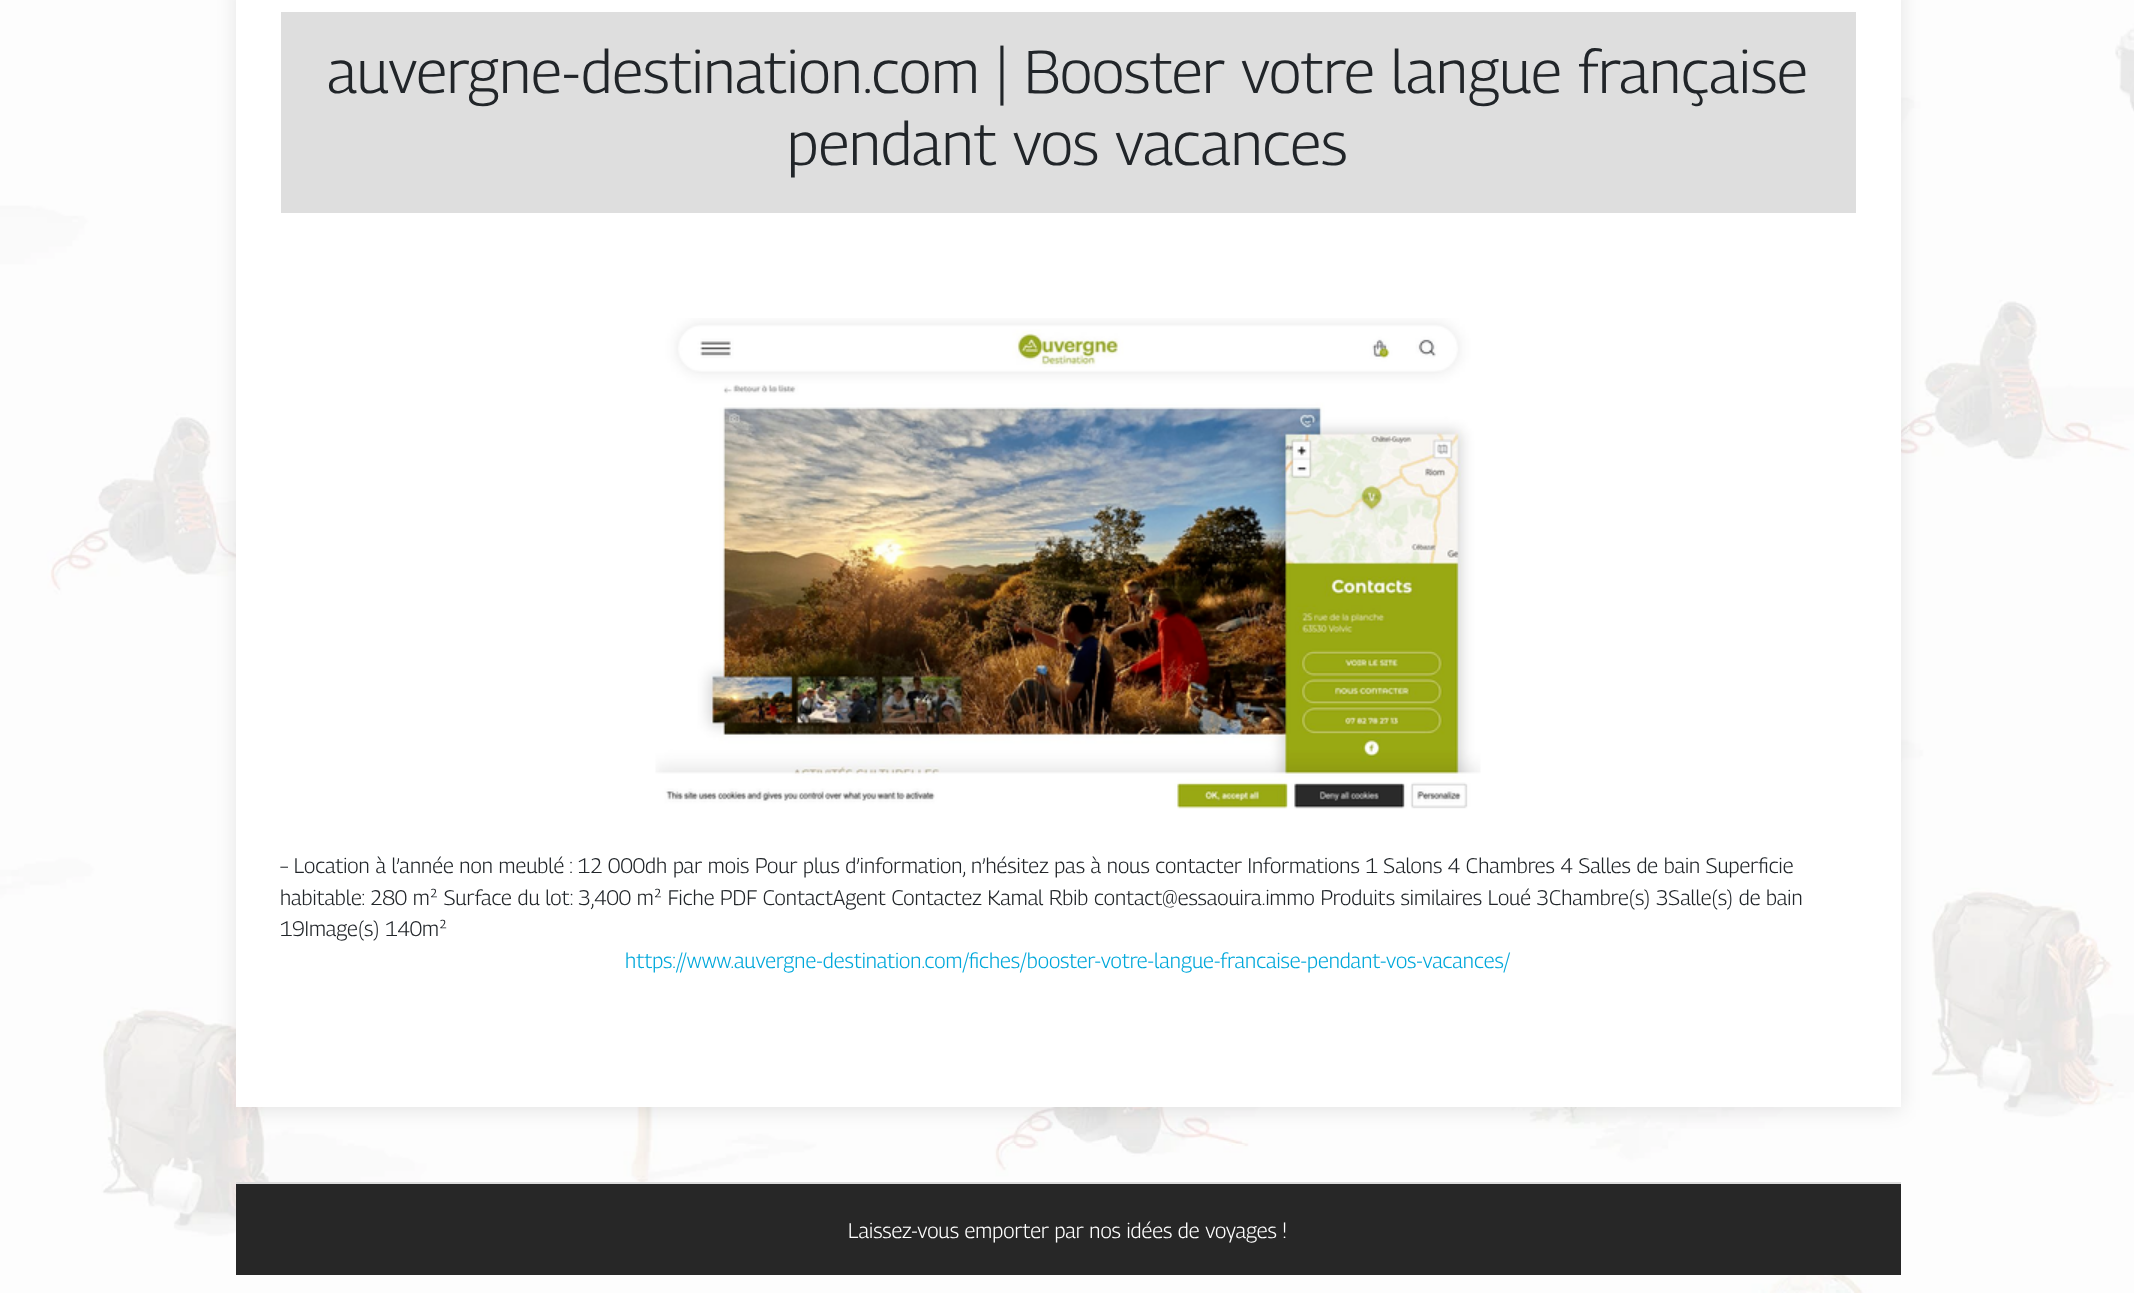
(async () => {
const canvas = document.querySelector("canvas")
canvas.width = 2134
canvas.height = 1293
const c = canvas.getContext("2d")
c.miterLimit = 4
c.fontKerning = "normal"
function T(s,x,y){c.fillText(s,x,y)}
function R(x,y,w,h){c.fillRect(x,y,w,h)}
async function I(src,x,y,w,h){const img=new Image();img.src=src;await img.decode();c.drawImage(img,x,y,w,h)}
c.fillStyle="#fff"
R(0,0,2134,1293)
await I("1.png",0,0,2134,1293)
c.fillStyle="#0000001a"
c.filter="blur(10px)"
c.beginPath()
c.rect(236,-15,1665,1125)
c.fill()
c.filter="none"
c.fillStyle="#fff"
R(236,0,1665,1107)
c.fillStyle="#dedede"
R(281,12,1575,201)
c.font="100 60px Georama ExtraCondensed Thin"
c.fillStyle="#212529"
T("auvergne-destination.com | Booster votre langue française",327,93)
T("pendant vos vacances",787,165)
await I("2.png",655,318,826,491)
c.font="100 21px Georama ExtraCondensed Thin"
T("– Location à l’année non meublé : 12 000dh par mois Pour plus d’information, n’hésitez pas à nous contacter Informations 1 Salons 4 Chambres 4 Salles de bain Superficie",280,873)
T("habitable: 280 m² Surface du lot: 3,400 m² Fiche PDF ContactAgent Contactez Kamal Rbib contact@essaouira.immo Produits similaires Loué 3Chambre(s) 3Salle(s) de bain",280,905)
T("19Image(s) 140m²",280,936)
c.fillStyle="#00a8db"
T("https://www.auvergne-destination.com/fiches/booster-votre-langue-francaise-pendant-vos-vacances/",625,968)
c.fillStyle="#272727"
R(236,1184,1665,91)
c.fillStyle="#ddd"
R(236,1182,1665,2)
c.fillStyle="#fff"
T("Laissez-vous emporter par nos idées de voyages !",848,1238)
})()
